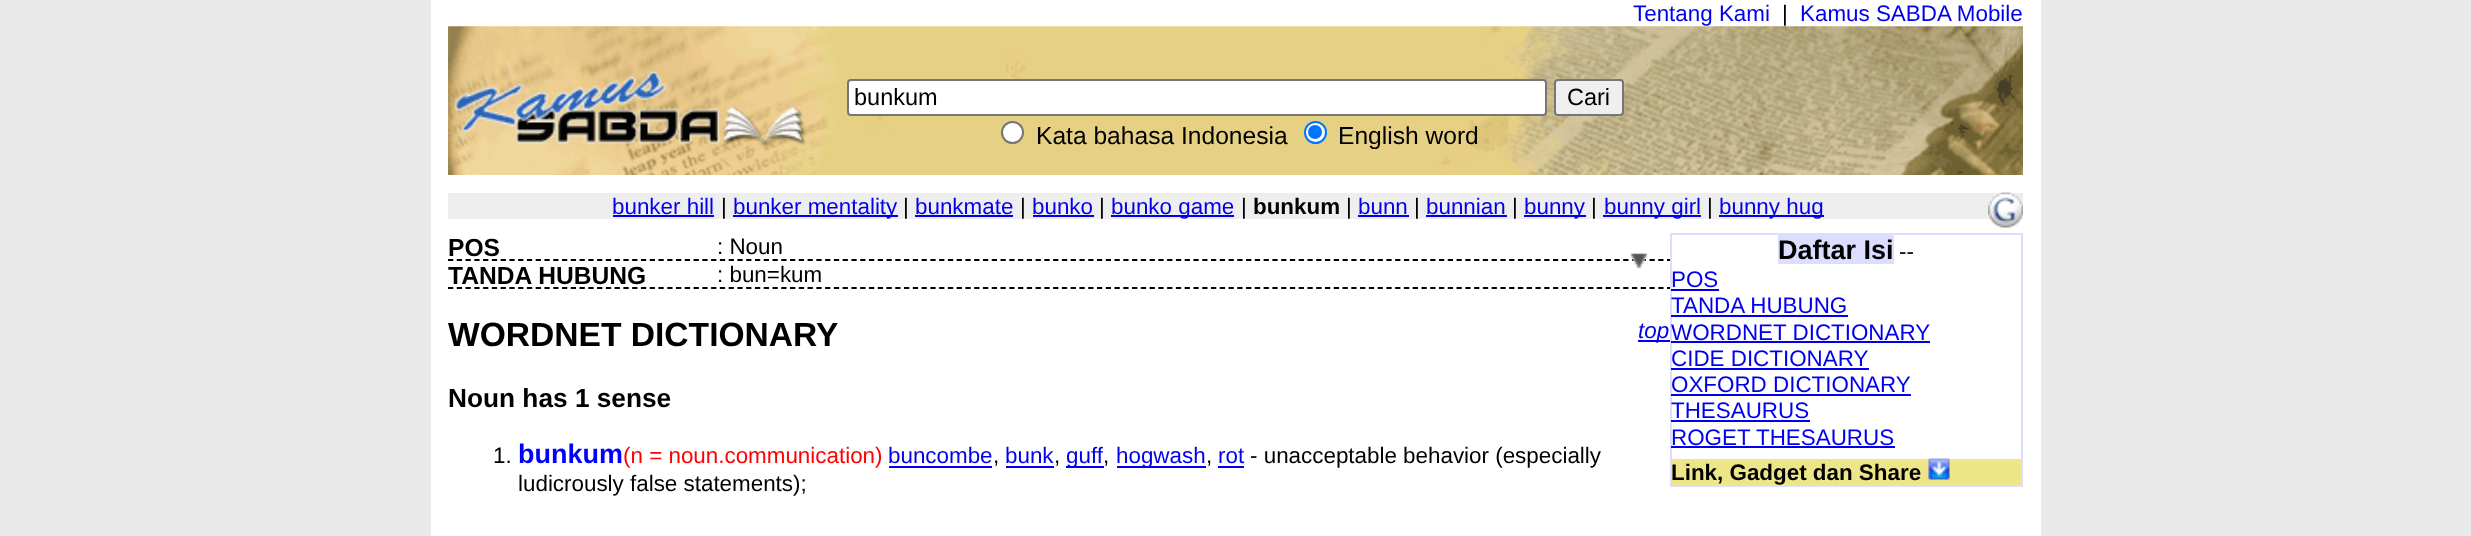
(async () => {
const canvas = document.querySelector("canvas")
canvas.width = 2471
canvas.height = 536
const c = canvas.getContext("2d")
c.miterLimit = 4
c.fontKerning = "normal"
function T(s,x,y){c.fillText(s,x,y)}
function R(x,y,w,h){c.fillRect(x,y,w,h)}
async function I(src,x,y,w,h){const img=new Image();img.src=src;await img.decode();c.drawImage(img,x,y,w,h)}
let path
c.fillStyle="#e9e9e9"
R(0,0,2471,536)
c.fillStyle="#fff"
R(431,0,1610,536)
c.font="22.4px Liberation Sans"
c.fillStyle="#00e"
T("Tentang Kami",1633,21)
c.fillStyle="#000"
T("|",1782,21)
c.fillStyle="#00e"
T("Kamus SABDA Mobile",1800,21)
await I("1.png",448,26,1575,149)
c.fillStyle="#fff"
c.beginPath()
c.roundRect(848,80,698,35,3)
c.fill()
c.strokeStyle="#767676"
c.lineWidth=2
c.stroke()
c.font="23.5px Liberation Sans"
c.fillStyle="#000"
T("bunkum",854,105)
c.fillStyle="#efefef"
c.beginPath()
c.roundRect(1555,80,68,35,3)
c.fill()
c.stroke()
c.fillStyle="#000"
T("Cari",1567,105)
c.fillStyle="#fff"
c.beginPath()
c.arc(1012.5,132.5,10.5,0,7)
c.fill()
c.stroke()
c.font="24.6px Liberation Sans"
c.fillStyle="#000"
T("Kata bahasa Indonesia",1036,144)
c.fillStyle="#fff"
c.beginPath()
c.arc(1315.5,132.5,10.5,0,7)
c.fill()
c.strokeStyle="#0075ff"
c.stroke()
c.fillStyle="#0075ff"
c.beginPath()
c.arc(1315,132,7,0,7)
c.fill()
c.fillStyle="#000"
T("English word",1338,144)
c.fillStyle="#eee"
R(448,193,1575,26)
c.font="22.4px Liberation Sans"
c.fillStyle="#00e"
T("bunker hill",612,214)
R(613,215,101,2)
c.fillStyle="#000"
T("|",721,214)
c.fillStyle="#00e"
R(733,215,165,2)
T("bunker mentality",733,214)
c.fillStyle="#000"
T("|",903,214)
c.fillStyle="#00e"
T("bunkmate",915,214)
R(915,215,98,2)
c.fillStyle="#000"
T("|",1020,214)
c.fillStyle="#00e"
T("bunko",1032,214)
R(1033,215,61,2)
c.fillStyle="#000"
T("|",1099,214)
c.fillStyle="#00e"
R(1111,215,123,2)
T("bunko game",1111,214)
c.fillStyle="#000"
T("|",1241,214)
c.font="bold 22.4px Liberation Sans"
T("bunkum",1253,214)
c.font="22.4px Liberation Sans"
T("|",1346,214)
c.fillStyle="#00e"
T("bunn",1358,214)
R(1358,215,51,2)
c.fillStyle="#000"
T("|",1414,214)
c.fillStyle="#00e"
T("bunnian",1426,214)
R(1426,215,81,2)
c.fillStyle="#000"
T("|",1512,214)
c.fillStyle="#00e"
R(1524,215,62,2)
T("bunny",1524,214)
c.fillStyle="#000"
T("|",1591,214)
c.fillStyle="#00e"
R(1603,215,98,2)
T("bunny girl",1604,214)
c.fillStyle="#000"
T("|",1707,214)
c.fillStyle="#00e"
R(1719,215,105,2)
T("bunny hug",1719,214)
await I("2.png",1988,192,35,36)
path = new Path2D("M448 260h1575")
c.strokeStyle="#000"
c.lineWidth=1.8
c.setLineDash([5.25,3.52])
c.stroke(path)
c.font="bold 24.6px Liberation Sans"
c.fillStyle="#000"
T("POS",448,256)
c.font="22.4px Liberation Sans"
T(": Noun",717,254)
path = new Path2D("M448 288h1575")
c.stroke(path)
c.font="bold 24.6px Liberation Sans"
T("TANDA HUBUNG",448,284)
c.font="22.4px Liberation Sans"
T(": bun=kum",717,282)
c.font="bold 33.6px Liberation Sans"
T("WORDNET DICTIONARY",448,346)
c.fillStyle="#00e"
R(1638,340,32,2)
c.font="italic 22.4px Liberation Sans"
T("top",1638,338)
c.font="bold 26.25px Liberation Sans"
c.fillStyle="#000"
T("Noun has 1 sense",448,407)
c.font="22.4px Liberation Sans"
T("1.",493,463)
c.font="bold 27px Liberation Sans"
c.fillStyle="#00f"
T("bunkum",518,463)
c.font="22.4px Liberation Sans"
c.fillStyle="#f00"
T("(n = noun.communication)",623,463)
c.fillStyle="#00e"
T("buncombe",888,463)
R(889,466,103,2)
c.fillStyle="#000"
T(",",993,463)
c.fillStyle="#00e"
T("bunk",1005,463)
R(1006,466,48,2)
c.fillStyle="#000"
T(",",1054,463)
c.fillStyle="#00e"
R(1066,466,38,2)
T("guff",1066,463)
c.fillStyle="#000"
T(",",1103,463)
c.fillStyle="#00e"
R(1117,466,89,2)
T("hogwash",1116,463)
c.fillStyle="#000"
T(",",1206,463)
c.fillStyle="#00e"
T("rot",1218,463)
R(1218,466,26,2)
c.fillStyle="#000"
T("- unacceptable behavior (especially",1250,463)
T("ludicrously false statements);",518,491)
c.fillStyle="#fff"
R(1672,259,349,30)
c.strokeStyle="#ddf"
c.lineWidth=2
c.setLineDash([])
c.strokeRect(1671,234,351,252)
c.fillStyle="#ddf"
R(1778,235,116,29)
c.font="bold 27px Liberation Sans"
c.fillStyle="#000"
T("Daftar Isi",1778,259)
c.font="22.4px Liberation Sans"
T("--",1899,259)
c.fillStyle="#00e"
T("POS",1671,287)
R(1671,289,48,2)
T("TANDA HUBUNG",1671,313)
R(1671,315,177,2)
T("WORDNET DICTIONARY",1671,340)
R(1671,341,259,2)
T("CIDE DICTIONARY",1671,366)
R(1671,368,198,2)
T("OXFORD DICTIONARY",1671,392)
R(1671,394,240,2)
T("THESAURUS",1671,418)
R(1671,420,139,2)
T("ROGET THESAURUS",1671,445)
R(1671,446,224,2)
c.fillStyle="#ede689"
R(1671,459,350,26)
c.font="bold 22.4px Liberation Sans"
c.fillStyle="#000"
T("Link, Gadget dan Share",1671,480)
await I("3.png",1928,458,22,22)
await I("4.png",1630,253,18,16)
})()
